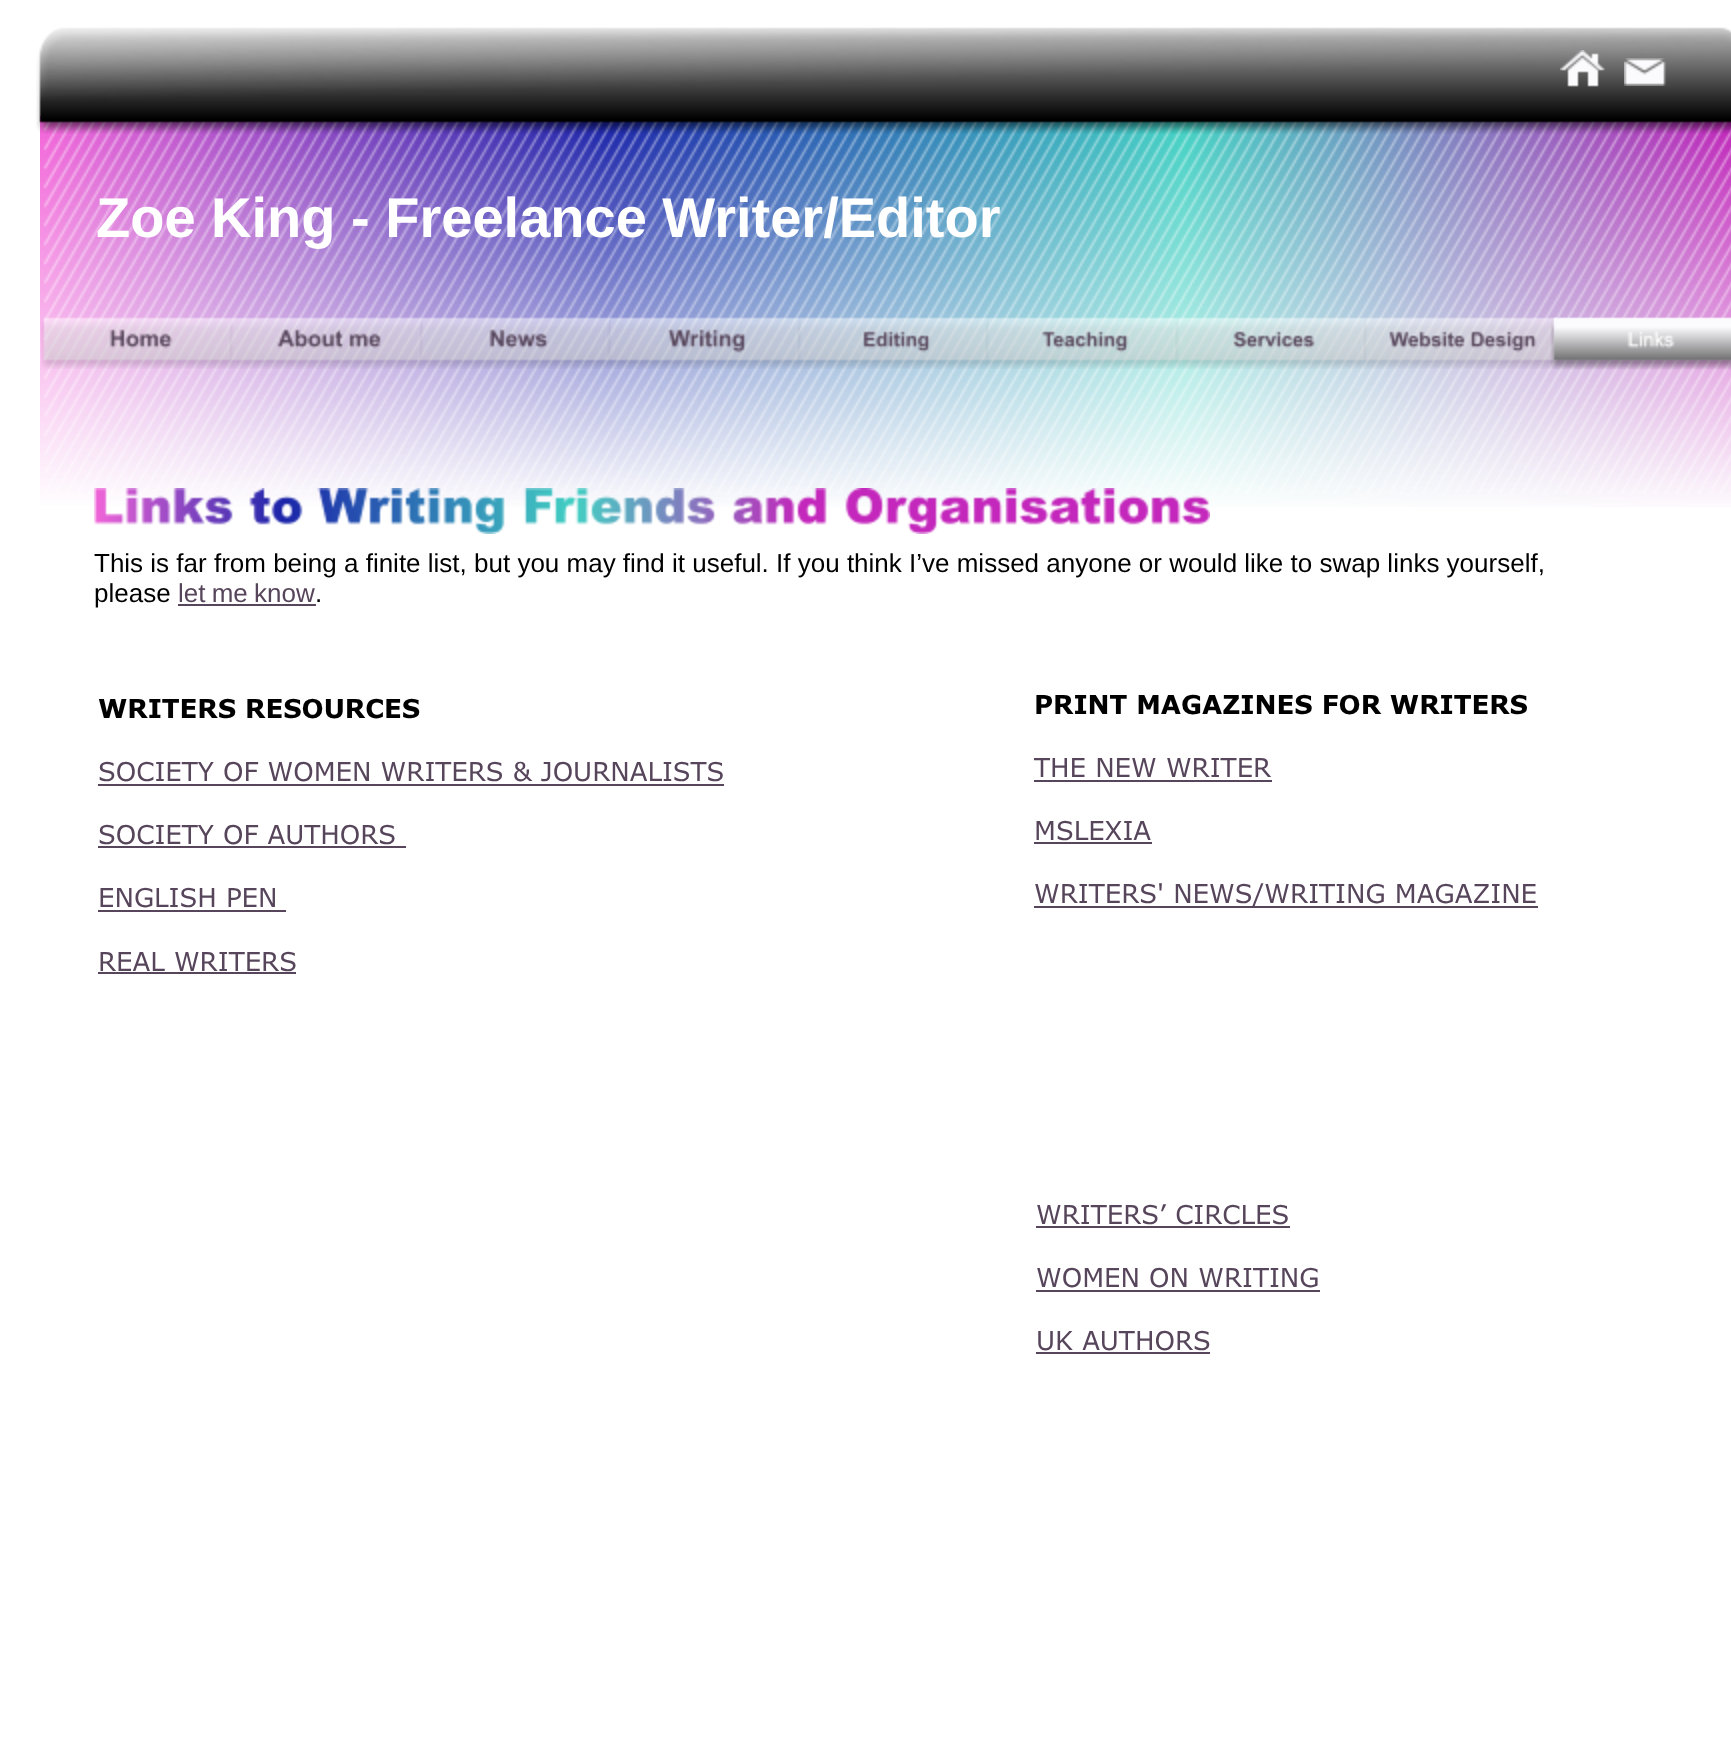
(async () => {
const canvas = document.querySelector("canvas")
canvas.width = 1731
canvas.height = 1749
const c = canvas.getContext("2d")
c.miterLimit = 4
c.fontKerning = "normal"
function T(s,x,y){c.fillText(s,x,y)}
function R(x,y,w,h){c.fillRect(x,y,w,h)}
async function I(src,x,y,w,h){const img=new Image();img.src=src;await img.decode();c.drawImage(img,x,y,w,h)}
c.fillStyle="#fff"
R(0,0,1731,1749)
await I("4.png",40,116,1691,391)
await I("5.png",43,121,1688,373)
await I("1.png",36,27,1695,107)
await I("2.png",1560,50,46,37)
await I("3.png",1624,58,42,28)
c.font="bold 56px Liberation Sans"
T("Zoe King - Freelance Writer/Editor",96,237)
await I("6.png",41,317,194,52)
await I("7.png",229,317,196,52)
await I("8.png",419,317,194,52)
await I("9.png",607,317,196,52)
await I("10.png",797,317,194,52)
await I("11.png",985,317,196,52)
await I("12.png",1175,317,194,52)
await I("13.png",1363,317,196,52)
await I("15.png",1551,317,180,52)
await I("14.png",1550,317,181,53)
await I("16.png",94,488,1116,46)
c.font="26px Liberation Sans"
c.fillStyle="#000"
T("This is far from being a finite list, but you may find it useful. If you think I’ve missed anyone or would like to swap links yourself,",94,572)
T("please",94,602)
c.wordSpacing="-1px"
c.fillStyle="#57465b"
T("let me know",178,602)
R(178,604,138,2)
c.wordSpacing="0px"
c.fillStyle="#000"
T(".",315,602)
c.font="bold 26px Verdana"
T("WRITERS RESOURCES",98,718)
c.font="26px Verdana"
c.fillStyle="#57465b"
T("SOCIETY OF WOMEN WRITERS & JOURNALISTS",98,781)
R(98,784,626,2)
T("SOCIETY OF AUTHORS",98,844)
R(98,846,308,2)
T("ENGLISH PEN",98,907)
R(98,910,188,2)
T("REAL WRITERS",98,971)
R(98,972,198,2)
c.font="bold 26px Verdana"
c.fillStyle="#000"
T("PRINT MAGAZINES FOR WRITERS",1034,714)
c.font="26px Verdana"
c.fillStyle="#57465b"
T("THE NEW WRITER",1034,777)
R(1034,780,238,2)
T("MSLEXIA",1034,840)
R(1034,842,118,2)
R(1034,906,504,2)
T("WRITERS' NEWS/WRITING MAGAZINE",1034,903)
T("WRITERS’ CIRCLES",1036,1224)
R(1036,1226,254,2)
T("WOMEN ON WRITING",1036,1287)
R(1036,1290,284,2)
T("UK AUTHORS",1036,1350)
R(1036,1352,174,2)
})()
